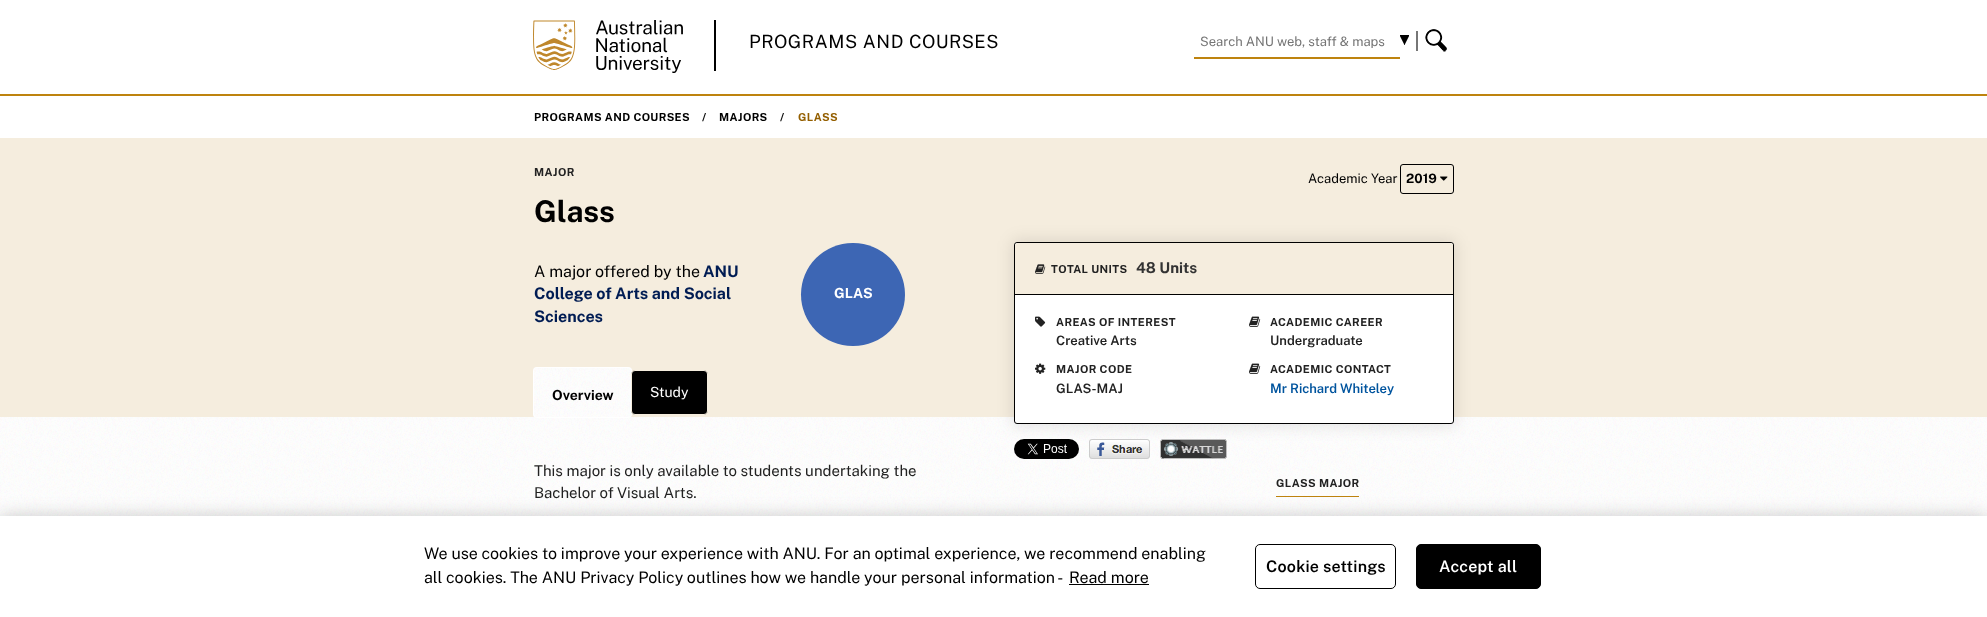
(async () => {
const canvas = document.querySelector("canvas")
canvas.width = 1987
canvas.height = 617
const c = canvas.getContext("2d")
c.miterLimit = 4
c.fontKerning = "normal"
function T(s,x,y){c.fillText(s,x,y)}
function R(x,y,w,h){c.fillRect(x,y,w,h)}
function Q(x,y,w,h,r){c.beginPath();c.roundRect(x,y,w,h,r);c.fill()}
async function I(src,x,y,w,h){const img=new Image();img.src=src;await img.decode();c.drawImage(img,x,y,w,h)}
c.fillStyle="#fff"
R(0,0,1987,617)
c.fillStyle="#be830e"
R(0,94,1987,2)
await I("1.png",533,20,150,53)
await I("2.png",714,20,2,51)
c.letterSpacing="0.55px"
c.font="18.3px Public Sans"
c.fillStyle="#000"
T("PROGRAMS AND COURSES",749,48)
c.fillStyle="#be830e"
R(1194,57,206,2)
c.letterSpacing="0px"
c.font="13px Public Sans"
c.fillStyle="#757575"
T("Search ANU web, staff & maps",1200,46)
await I("3.png",1400,35,9,10)
c.fillStyle="#767676"
R(1416,31,2,20)
await I("4.png",1425,29,22,23)
c.letterSpacing="0.4px"
c.font="bold 11px Public Sans"
c.fillStyle="#000"
T("PROGRAMS AND COURSES",534,121)
T("/",702,121)
T("MAJORS",719,121)
T("/",780,121)
c.fillStyle="#945f00"
T("GLASS",798,121)
c.fillStyle="#f5edde"
R(0,138,1987,279)
c.fillStyle="#222"
T("MAJOR",534,176)
c.letterSpacing="0px"
c.font="bold 30px Public Sans"
c.fillStyle="#000"
T("Glass",534,222)
c.font="16px Public Sans"
T("A major offered by the",534,277)
c.font="bold 16px Public Sans"
c.fillStyle="#001c53"
T("ANU",703,277)
T("College of Arts and Social",534,299)
T("Sciences",534,322)
c.fillStyle="#3d66b4"
Q(801,243,104,103,51.5)
c.font="bold 14px Public Sans"
c.fillStyle="#fff"
T("GLAS",834,298)
c.font="13px Public Sans"
c.fillStyle="#000"
T("Academic Year",1308,183)
c.beginPath()
c.roundRect(1400.5,164.5,53,29,2.5)
c.strokeStyle="#000"
c.stroke()
c.font="bold 13px Public Sans"
T("2019",1406,183)
await I("5.png",1440,176,8,5)
await I("7.png",0,417,1987,99)
await I("6.png",533,367,99,51)
c.beginPath()
c.roundRect(533.5,367.5,98,50,3.5)
c.strokeStyle="#fff"
c.stroke()
c.font="bold 14px Public Sans"
T("Overview",552,400)
c.beginPath()
c.roundRect(631.5,370.5,76,44,3.5)
c.fill()
c.strokeStyle="#f5edde"
c.stroke()
c.font="14px Public Sans"
c.fillStyle="#fff"
T("Study",650,397)
c.fillStyle="#0000001a"
c.filter="blur(8px)"
c.beginPath()
c.roundRect(1012,240,444,186,5)
c.fill()
c.filter="none"
c.fillStyle="#fff"
c.beginPath()
c.roundRect(1014.5,242.5,439,181,2.5)
c.fill()
c.strokeStyle="#000"
c.stroke()
c.fillStyle="#f5edde"
c.beginPath()
c.roundRect(1015,243,438,52,[3,3,0,0])
c.fill()
c.fillStyle="#000"
R(1015,294,438,1)
await I("8.png",1035,264,11,10)
c.letterSpacing="0.4px"
c.font="bold 11px Public Sans"
c.fillStyle="#222"
T("TOTAL UNITS",1051,273)
c.letterSpacing="0px"
c.font="bold 15px Public Sans"
c.fillStyle="#333"
T("48 Units",1136,273)
await I("9.png",1035,316,11,11)
c.letterSpacing="0.4px"
c.font="bold 11px Public Sans"
c.fillStyle="#222"
T("AREAS OF INTEREST",1056,326)
c.letterSpacing="0px"
c.font="600 13px Public Sans"
T("Creative Arts",1056,345)
await I("10.png",1035,363,11,11)
c.letterSpacing="0.4px"
c.font="bold 11px Public Sans"
T("MAJOR CODE",1056,373)
c.letterSpacing="0px"
c.font="600 13px Public Sans"
T("GLAS-MAJ",1056,393)
await I("11.png",1249,316,12,11)
c.letterSpacing="0.4px"
c.font="bold 11px Public Sans"
T("ACADEMIC CAREER",1270,326)
c.letterSpacing="0px"
c.font="600 13px Public Sans"
T("Undergraduate",1270,345)
await I("11.png",1249,363,12,11)
c.letterSpacing="0.4px"
c.font="bold 11px Public Sans"
T("ACADEMIC CONTACT",1270,373)
c.letterSpacing="0px"
c.font="600 13px Public Sans"
c.fillStyle="#00549e"
T("Mr Richard Whiteley",1270,393)
await I("12.png",1014,439,65,20)
await I("13.png",1089,439,61,20)
await I("14.png",1160,439,67,20)
c.font="15px Public Sans"
c.fillStyle="#222"
T("This major is only available to students undertaking the",534,476)
T("Bachelor of Visual Arts.",534,498)
c.fillStyle="#be830e"
R(1276,496,83,1)
c.letterSpacing="0.4px"
c.font="bold 11px Public Sans"
c.fillStyle="#222"
T("GLASS MAJOR",1276,487)
c.fillStyle="#00000033"
c.filter="blur(9px)"
c.beginPath()
c.rect(0,516,1987,101)
c.fill()
c.filter="none"
c.fillStyle="#fff"
R(0,516,1987,101)
c.letterSpacing="0px"
c.font="16px Public Sans"
c.fillStyle="#000"
T("We use cookies to improve your experience with ANU. For an optimal experience, we recommend enabling",424,559)
T("all cookies. The ANU Privacy Policy outlines how we handle your personal information -",424,583)
T("Read more",1069,583)
R(1069,584,80,1)
c.beginPath()
c.roundRect(1255.5,544.5,140,44,4.5)
c.stroke()
c.letterSpacing="0.2px"
c.font="600 16px Public Sans"
T("Cookie settings",1266,572)
c.beginPath()
c.roundRect(1416.5,544.5,124,44,4.5)
c.fill()
c.stroke()
c.fillStyle="#fff"
T("Accept all",1439,572)
})()
